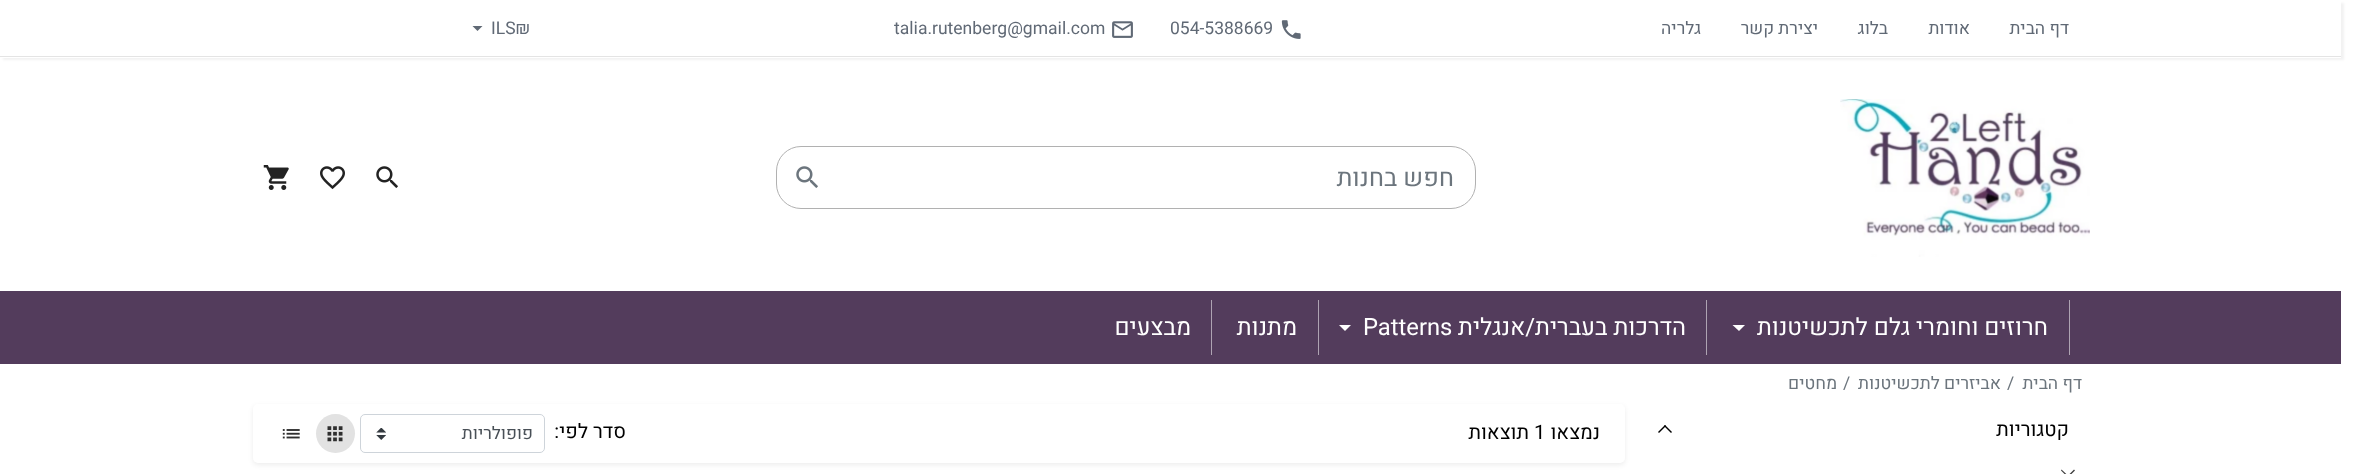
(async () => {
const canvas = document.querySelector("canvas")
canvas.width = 2360
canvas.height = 474
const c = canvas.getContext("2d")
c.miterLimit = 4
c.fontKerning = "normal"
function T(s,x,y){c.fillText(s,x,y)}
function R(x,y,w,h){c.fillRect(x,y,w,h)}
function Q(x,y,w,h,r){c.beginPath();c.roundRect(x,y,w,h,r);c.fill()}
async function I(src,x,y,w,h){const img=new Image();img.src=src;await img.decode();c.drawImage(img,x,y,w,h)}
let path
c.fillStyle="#fff"
R(0,0,2360,474)
c.save()
path = new Path2D("M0 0h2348v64h-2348zm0 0h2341v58h-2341z")
c.clip(path,"evenodd")
c.fillStyle="#0000000d"
c.filter="blur(1px)"
c.beginPath()
c.rect(3,3,2341,57)
c.fill()
c.filter="none"
c.restore()
c.fillStyle="#e4e4e4"
R(0,56,2341,1)
c.direction="rtl"
c.font="17.5px Heebo"
c.fillStyle="#606975"
T("דף הבית",2069,34)
T("אודות",1970,34)
T("בלוג",1888,34)
T("יצירת קשר",1818,34)
T("גלריה",1701,34)
await I("1.png",1281,20,20,19)
c.direction="ltr"
T("054-5388669",1170,34)
await I("2.png",1112,21,21,17)
T("talia.rutenberg@gmail.com",894,34)
T("ILS₪",491,34)
path = new Path2D("M472.5 26h10l-5 5z")
c.fill(path)
await I("3.png",1840,99,250,158)
c.beginPath()
c.roundRect(776.5,146.5,699,62,24.5)
c.strokeStyle="#b1b1b1"
c.stroke()
c.direction="rtl"
c.font="25px Heebo"
c.fillStyle="#6c757d"
T("חפש בחנות",1454,186)
await I("4.png",796,166,22,22)
await I("5.png",376,166,22,22)
await I("6.png",320,166,25,24)
await I("7.png",263,165,26,25)
c.fillStyle="#533c5c"
R(0,291,2341,73)
c.fillStyle="#aea3b2"
R(2069,300,1,55)
c.font="23.75px Heebo"
c.fillStyle="#fff"
T("חרוזים וחומרי גלם לתכשיטנות",2048,335)
path = new Path2D("M1732.5 325h12.5l-6 6z")
c.fill(path)
c.fillStyle="#aea3b2"
R(1706,300,1,55)
c.fillStyle="#fff"
T("הדרכות בעברית/אנגלית",1686,335)
c.direction="ltr"
T("Patterns",1363,335)
path = new Path2D("M1339 325h12l-6 6z")
c.fill(path)
c.fillStyle="#aea3b2"
R(1318,300,1,55)
c.direction="rtl"
c.fillStyle="#fff"
T("מתנות",1297,335)
c.fillStyle="#aea3b2"
R(1211,300,1,55)
c.fillStyle="#fff"
T("מבצעים",1191,335)
c.font="17.5px Heebo"
c.fillStyle="#6c757d"
T("דף הבית",2082,389)
c.direction="ltr"
T("/",2007,389)
c.direction="rtl"
T("אביזרים לתכשיטנות",2001,389)
c.direction="ltr"
T("/",1843,389)
c.direction="rtl"
T("מחטים",1837,389)
c.font="20px Heebo"
c.fillStyle="#000"
T("קטגוריות",2069,436)
path = new Path2D("M1666 426l-7 7l-1-1l7-7z")
c.fill(path)
path = new Path2D("M1672 432l-1 1l-7-7l1-1z")
c.fill(path)
c.fillStyle="#424242"
path = new Path2D("M2068 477.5l-7-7l.5-1l7.5 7zm0 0l-1-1l7-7l1 1z")
c.fill(path)
c.fillStyle="#00000012"
c.filter="blur(2.5px)"
c.beginPath()
c.roundRect(253,406,1372,59,5)
c.fill()
c.filter="none"
c.fillStyle="#fff"
Q(253,404,1372,59,5)
c.fillStyle="#000"
T("נמצאו",1600,439)
c.direction="ltr"
T("1",1534,439)
c.direction="rtl"
T("תוצאות",1529,439)
T("סדר לפי:",626,438)
await I("8.png",376,428,10,12)
c.beginPath()
c.roundRect(360.5,414.5,184,38,4.5)
c.strokeStyle="#ced4da"
c.stroke()
c.font="17.5px Heebo"
c.fillStyle="#495057"
T("פופולריות",533,439)
c.fillStyle="#e2e2e2"
c.beginPath()
c.arc(335.5,433.5,19.5,0,7)
c.fill()
await I("9.png",327,426,16,16)
await I("10.png",282,429,18,10)
})()
